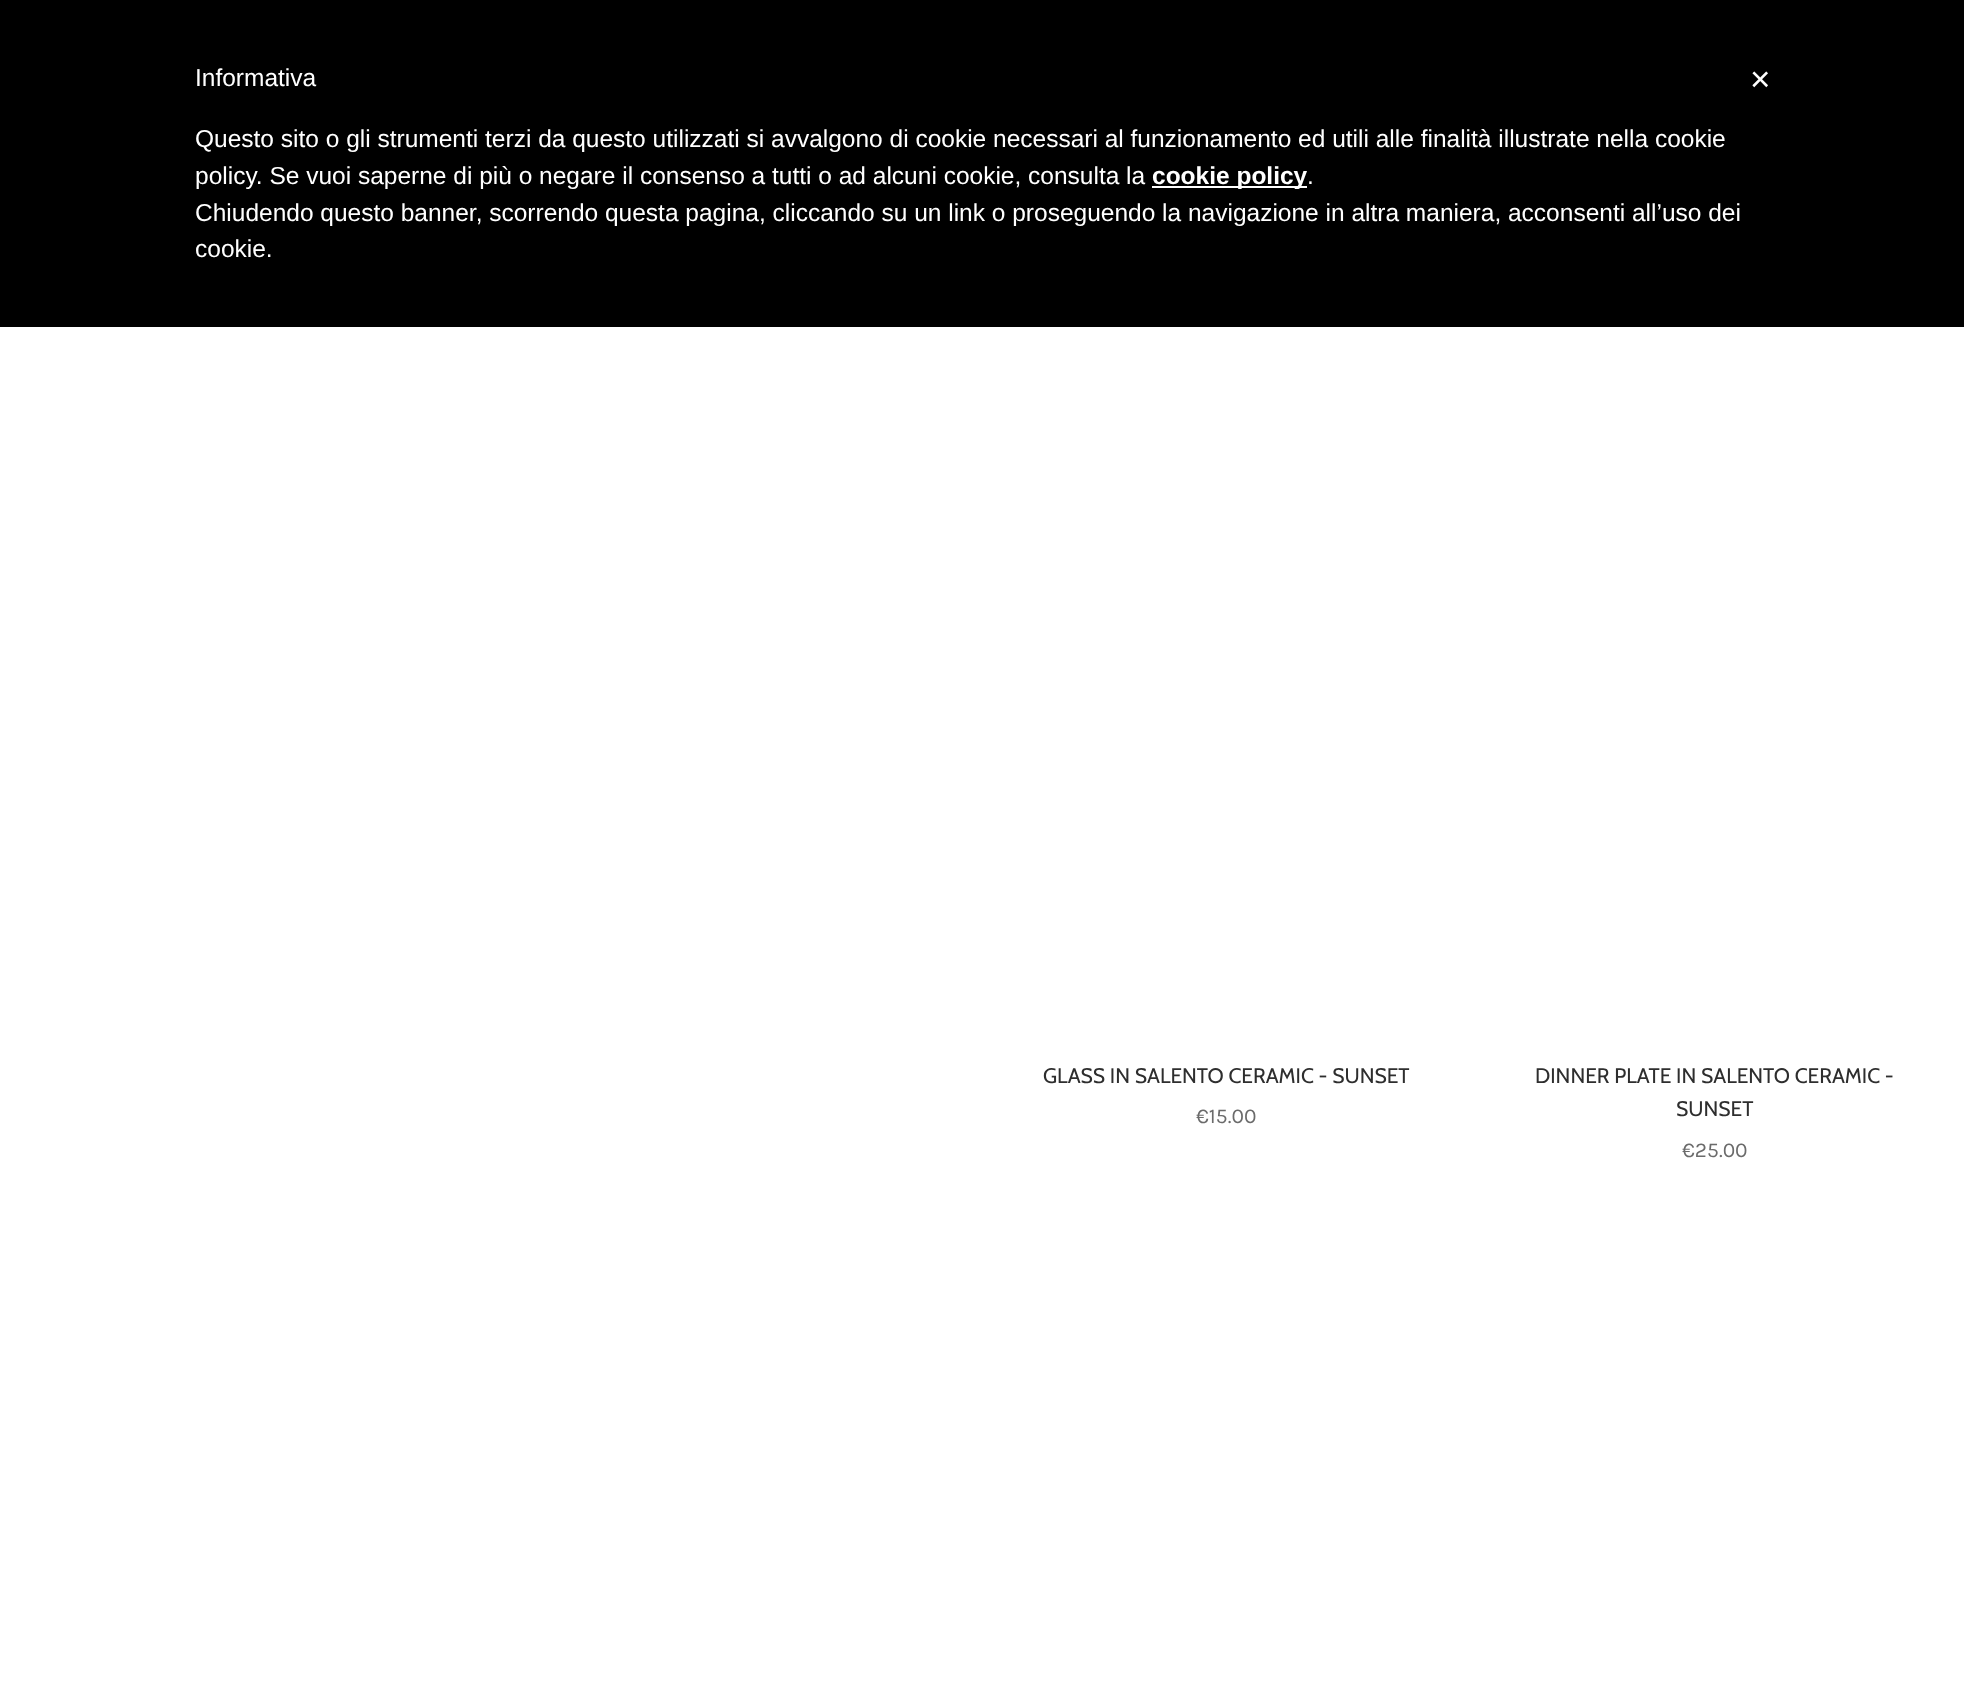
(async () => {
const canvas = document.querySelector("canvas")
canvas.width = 1964
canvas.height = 1685
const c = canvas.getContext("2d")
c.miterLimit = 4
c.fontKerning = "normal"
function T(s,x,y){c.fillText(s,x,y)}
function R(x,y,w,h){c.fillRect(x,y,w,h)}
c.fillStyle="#fff"
R(0,0,1964,1685)
c.fillStyle="#000"
R(0,0,1964,327)
c.font="24.5px Liberation Sans"
c.fillStyle="#fff"
T("Informativa",195,86)
T("Questo sito o gli strumenti terzi da questo utilizzati si avvalgono di cookie necessari al funzionamento ed utili alle finalità illustrate nella cookie",195,147)
T("policy. Se vuoi saperne di più o negare il consenso a tutti o ad alcuni cookie, consulta la",195,184)
R(1152,186,155,2)
c.font="bold 24.5px Liberation Sans"
T("cookie policy",1152,184)
c.font="24.5px Liberation Sans"
T(".",1307,184)
T("Chiudendo questo banner, scorrendo questa pagina, cliccando su un link o proseguendo la navigazione in altra maniera, acconsenti all’uso dei",195,221)
T("cookie.",195,257)
c.font="35px Liberation Sans"
T("×",1750,91)
c.font="21px Cabin"
c.fillStyle="#2e2e2e"
T("GLASS IN SALENTO CERAMIC - SUNSET",1043,1083)
c.font="21px Karla"
c.fillStyle="#6b6b6b"
T("€15.00",1196,1123)
c.font="21px Cabin"
c.fillStyle="#2e2e2e"
T("DINNER PLATE IN SALENTO CERAMIC -",1535,1083)
T("SUNSET",1676,1116)
c.font="21px Karla"
c.fillStyle="#6b6b6b"
T("€25.00",1682,1157)
})()
